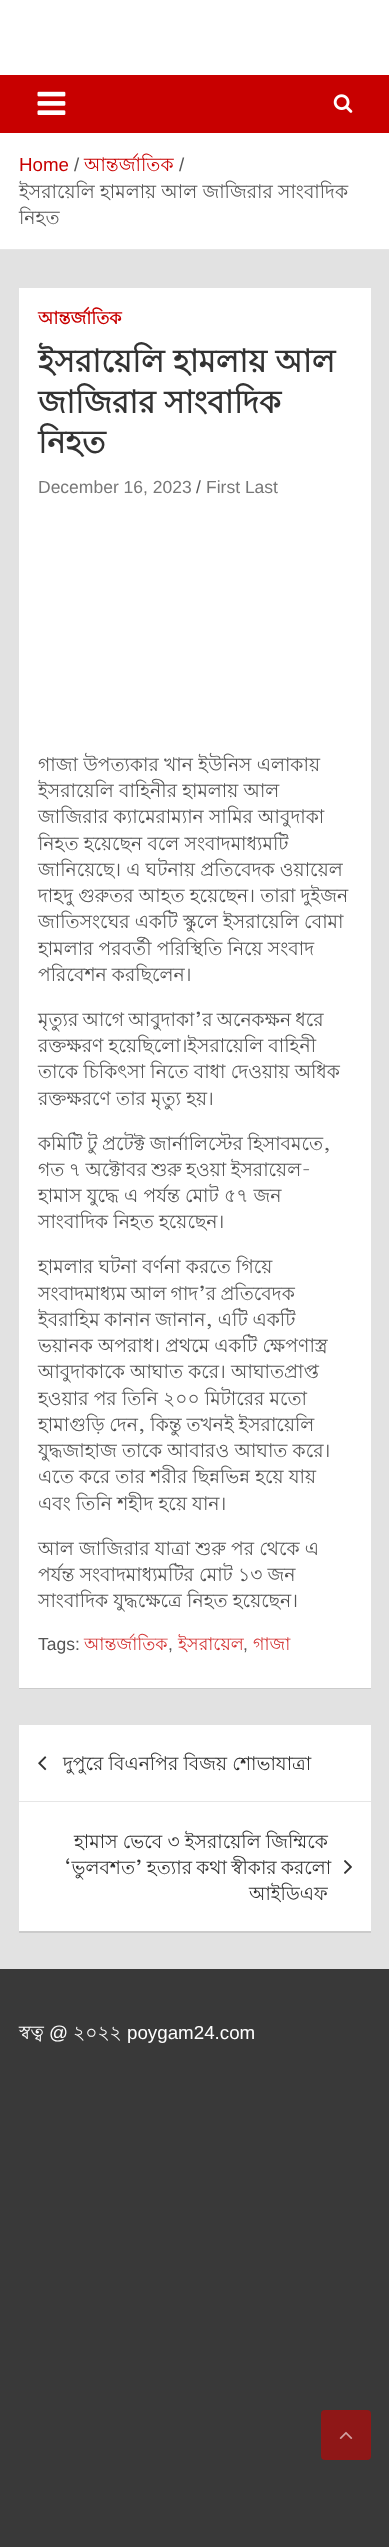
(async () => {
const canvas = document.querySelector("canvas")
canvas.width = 389
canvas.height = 2547
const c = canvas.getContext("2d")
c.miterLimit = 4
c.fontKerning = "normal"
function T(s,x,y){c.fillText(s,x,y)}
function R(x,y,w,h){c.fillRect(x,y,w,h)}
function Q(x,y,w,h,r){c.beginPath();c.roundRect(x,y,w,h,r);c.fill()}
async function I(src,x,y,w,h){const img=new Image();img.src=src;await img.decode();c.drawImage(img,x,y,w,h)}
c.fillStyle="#e2e2e2"
R(0,0,389,2547)
c.fillStyle="#fff"
R(0,0,389,75)
c.fillStyle="#c80000"
R(0,75,389,58)
await I("1.png",37,91,29,24)
await I("2.png",333,94,20,19)
c.fillStyle="#fff"
R(0,133,389,116)
c.fillStyle="#e6e6e6"
R(0,249,389,1)
c.font="18.75px Liberation Sans"
c.fillStyle="#c80000"
T("Home",19,171)
c.fillStyle="#555"
T("/",74,171)
c.font="18.75px Lohit Bengali"
c.fillStyle="#c80000"
T("আন্তর্জাতিক",84,171)
c.font="18.75px Liberation Sans"
c.fillStyle="#555"
T("/",179,171)
c.font="18.75px Lohit Bengali"
T("ইসরায়েলি হামলায় আল জাজিরার সাংবাদিক",19,198)
T("নিহত",19,224)
c.fillStyle="#0000001a"
c.filter="blur(0.5px)"
c.beginPath()
c.rect(19,289,352,1400)
c.fill()
c.filter="none"
c.fillStyle="#fff"
R(19,288,352,1400)
c.font="bold 17.5px Lohit Bengali"
c.fillStyle="#c80000"
T("আন্তর্জাতিক",38,324)
c.font="bold 31.25px Lohit Bengali"
c.fillStyle="#333"
T("ইসরায়েলি হামলায় আল",38,372)
T("জাজিরার সাংবাদিক",38,413)
T("নিহত",38,453)
c.font="17.5px Liberation Sans"
c.fillStyle="#777"
T("December 16, 2023",38,493)
c.fillStyle="#555"
T("/",196,493)
c.fillStyle="#777"
T("First Last",206,493)
c.font="18.75px Lohit Bengali"
c.fillStyle="#555"
T("গাজা উপত্যকার খান ইউনিস এলাকায়",38,771)
T("ইসরায়েলি বাহিনীর হামলায় আল",38,797)
T("জাজিরার ক্যামেরাম্যান সামির আবুদাকা",38,823)
T("নিহত হয়েছেন বলে সংবাদমাধ্যমটি",38,850)
T("জানিয়েছে। এ ঘটনায় প্রতিবেদক ওয়ায়েল",38,876)
T("দাহদু গুরুতর আহত হয়েছেন। তারা দুইজন",38,902)
T("জাতিসংঘের একটি স্কুলে ইসরায়েলি বোমা",38,928)
T("হামলার পরবর্তী পরিস্থিতি নিয়ে সংবাদ",38,955)
T("পরিবেশন করছিলেন।",38,981)
c.wordSpacing="-1px"
T("মৃত্যুর আগে আবুদাকা’র অনেকক্ষন ধরে",38,1026)
c.wordSpacing="0px"
T("রক্তক্ষরণ হয়েছিলো।ইসরায়েলি বাহিনী",38,1052)
T("তাকে চিকিৎসা নিতে বাধা দেওয়ায় অধিক",38,1078)
T("রক্তক্ষরণে তার মৃত্যু হয়।",38,1105)
c.wordSpacing="-0.5px"
T("কমিটি টু প্রটেক্ট জার্নালিস্টের হিসাবমতে,",38,1150)
c.wordSpacing="-0.75px"
T("গত ৭ অক্টোবর শুরু হওয়া ইসরায়েল-",38,1176)
c.wordSpacing="0px"
T("হামাস যুদ্ধে এ পর্যন্ত মোট ৫৭ জন",38,1202)
T("সাংবাদিক নিহত হয়েছেন।",38,1228)
T("হামলার ঘটনা বর্ণনা করতে গিয়ে",38,1273)
c.wordSpacing="-1px"
T("সংবাদমাধ্যম আল গাদ’র প্রতিবেদক",38,1300)
c.wordSpacing="-0.5px"
T("ইবরাহিম কানান জানান, এটি একটি",38,1326)
c.wordSpacing="0px"
T("ভয়ানক অপরাধ। প্রথমে একটি ক্ষেপণাস্ত্র",38,1352)
T("আবুদাকাকে আঘাত করে। আঘাতপ্রাপ্ত",38,1378)
T("হওয়ার পর তিনি ২০০ মিটারের মতো",38,1405)
c.wordSpacing="-0.5px"
T("হামাগুড়ি দেন, কিন্তু তখনই ইসরায়েলি",38,1431)
c.wordSpacing="0px"
T("যুদ্ধজাহাজ তাকে আবারও আঘাত করে।",38,1457)
T("এতে করে তার শরীর ছিন্নভিন্ন হয়ে যায়",38,1483)
T("এবং তিনি শহীদ হয়ে যান।",38,1510)
T("আল জাজিরার যাত্রা শুরু পর থেকে এ",38,1555)
T("পর্যন্ত সংবাদমাধ্যমটির মোট ১৩ জন",38,1581)
T("সাংবাদিক যুদ্ধক্ষেত্রে নিহত হয়েছেন।",38,1607)
c.font="17.5px Liberation Sans"
T("Tags:",38,1650)
c.font="17.5px Lohit Bengali"
c.fillStyle="#d33333"
T("আন্তর্জাতিক",84,1650)
T("ইসরায়েল",178,1650)
T("গাজা",253,1650)
c.font="17.5px Liberation Sans"
c.fillStyle="#555"
T(",",168,1650)
T(",",243,1650)
c.fillStyle="#0000001a"
c.filter="blur(0.5px)"
c.beginPath()
c.rect(19,1726,352,207)
c.fill()
c.filter="none"
c.fillStyle="#fff"
R(19,1725,352,206)
c.fillStyle="#e6e6e6"
R(19,1801,352,1)
await I("3.png",38,1756,9,15)
c.font="18.75px Lohit Bengali"
c.fillStyle="#333"
T("দুপুরে বিএনপির বিজয় শোভাযাত্রা",63,1770)
T("হামাস ভেবে ৩ ইসরায়েলি জিম্মিকে",74,1848)
c.wordSpacing="-1px"
T("‘ভুলবশত’ হত্যার কথা স্বীকার করলো",64,1874)
await I("4.png",344,1860,8,14)
c.wordSpacing="0px"
T("আইডিএফ",249,1900)
c.fillStyle="#393939"
R(0,1969,389,578)
c.fillStyle="#fff"
T("স্বত্ব",19,2039)
c.font="18.75px Liberation Sans"
T("@",49,2039)
c.font="18.75px Lohit Bengali"
T("২০২২",73,2039)
c.font="18.75px Liberation Sans"
T("poygam24.com",127,2039)
c.fillStyle="#8f1717"
Q(321,2410,50,50,4)
await I("5.png",339,2431,14,8)
})()
